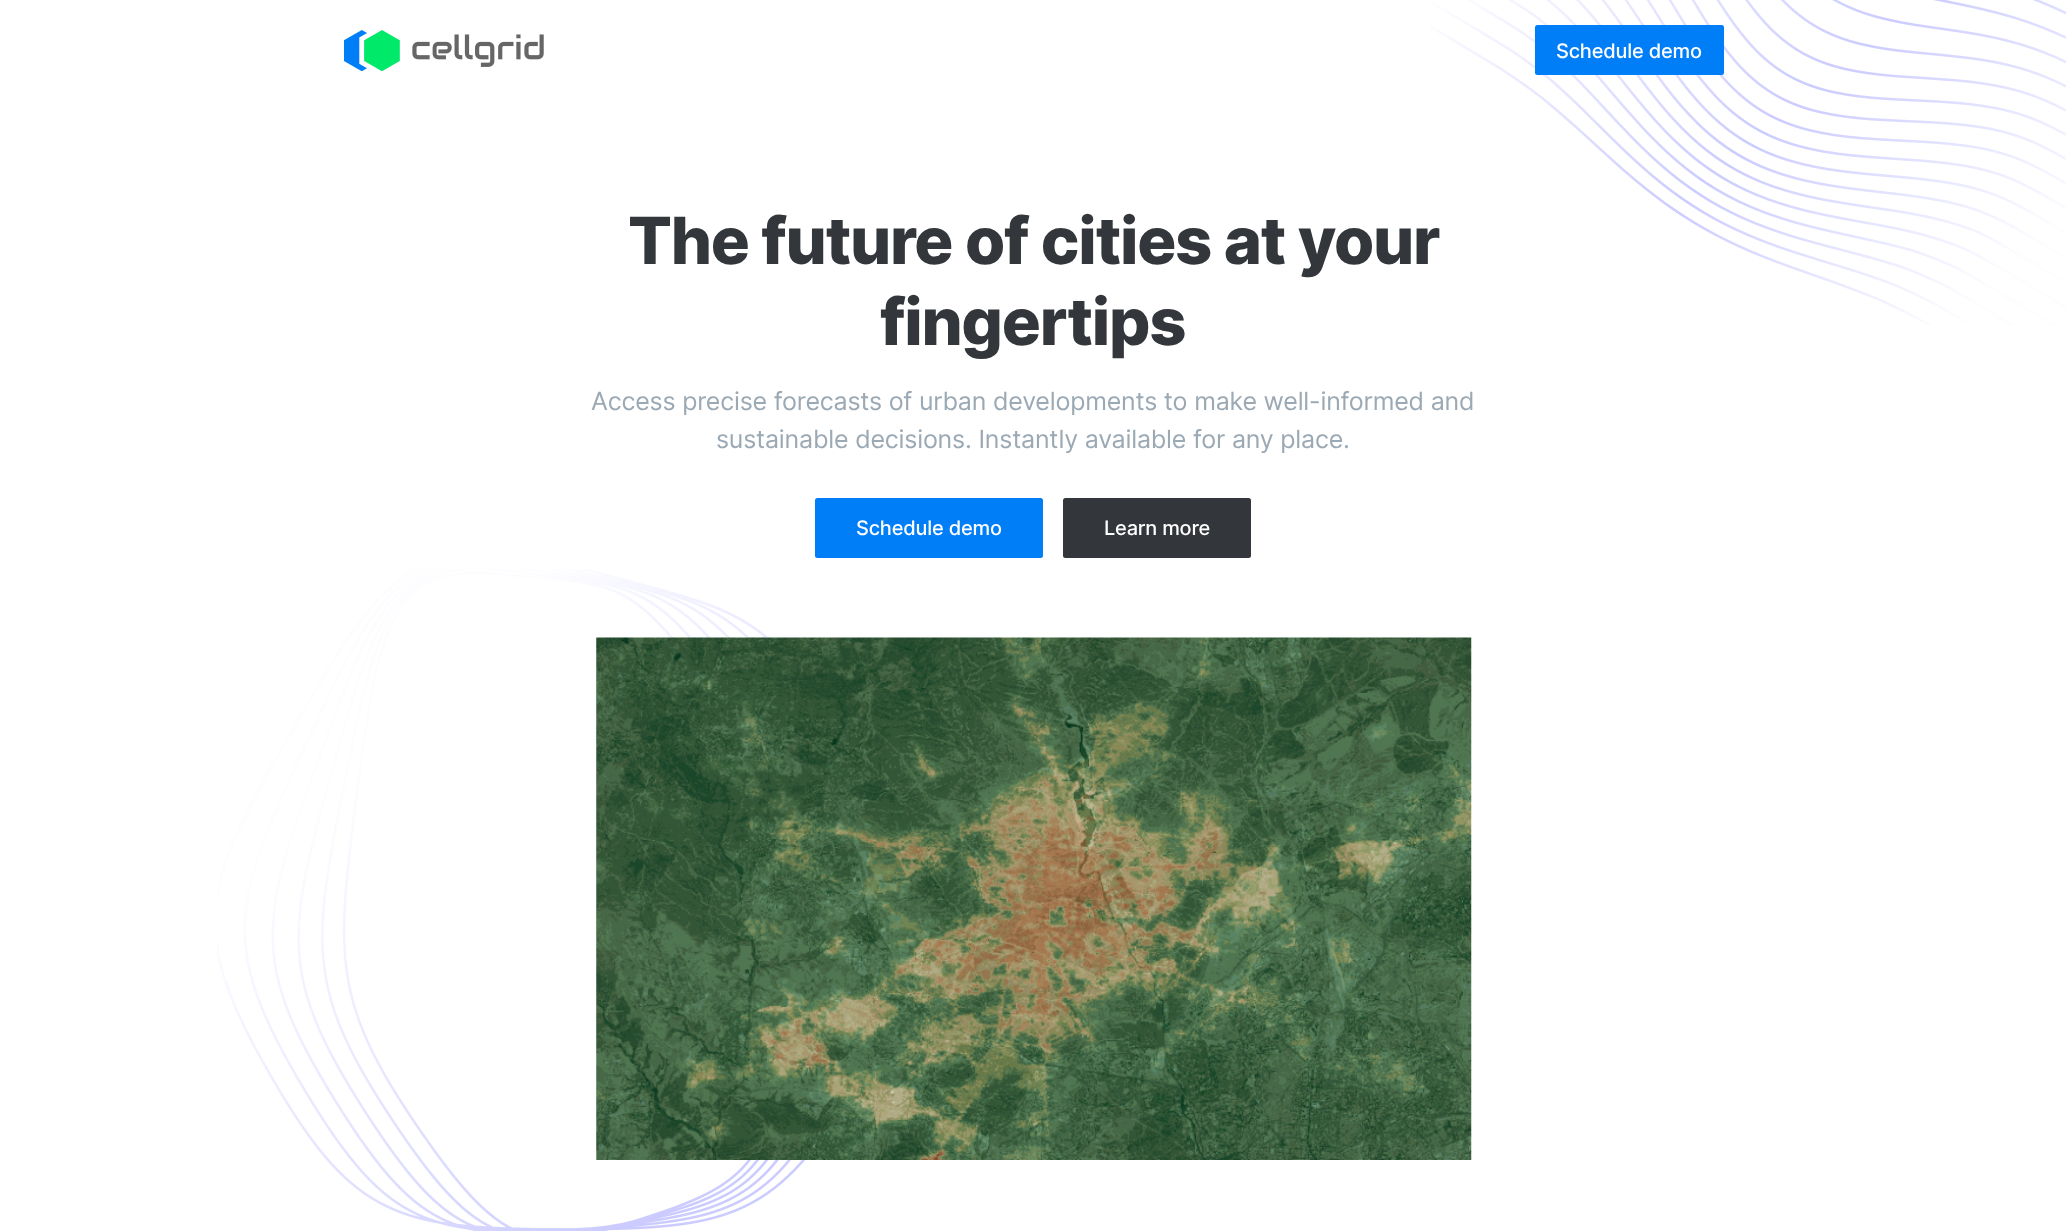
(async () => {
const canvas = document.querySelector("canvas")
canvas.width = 2066
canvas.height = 1231
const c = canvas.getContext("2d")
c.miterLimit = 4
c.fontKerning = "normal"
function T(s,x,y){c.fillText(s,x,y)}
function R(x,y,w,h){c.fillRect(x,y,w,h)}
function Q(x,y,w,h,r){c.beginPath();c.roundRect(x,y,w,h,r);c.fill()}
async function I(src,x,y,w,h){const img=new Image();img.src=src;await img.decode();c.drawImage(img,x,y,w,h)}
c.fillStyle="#fff"
R(0,0,2066,1231)
await I("1.png",344,30,200,41)
await I("2.png",1431,0,635,325)
c.fillStyle="#007ef8"
Q(1535,25,189,50,2.5)
c.letterSpacing="-0.2px"
c.font="500 20px Inter"
c.fillStyle="#fff"
T("Schedule demo",1556,58)
c.letterSpacing="-1.3px"
c.font="800 65px Inter"
c.fillStyle="#33363a"
T("The future of cities at your",628,264)
T("fingertips",880,345)
c.letterSpacing="-0.2px"
c.font="25px Inter"
c.fillStyle="#9ba9b4"
T("Access precise forecasts of urban developments to make well-informed and",591,410)
T("sustainable decisions. Instantly available for any place.",716,448)
c.fillStyle="#007ef8"
Q(815,498,228,60,2.5)
c.font="500 20px Inter"
c.fillStyle="#fff"
T("Schedule demo",856,535)
c.fillStyle="#33363a"
Q(1063,498,188,60,2.5)
c.fillStyle="#fff"
T("Learn more",1104,535)
await I("4.png",217,569,588,662)
await I("3.png",596,637,876,523)
})()
